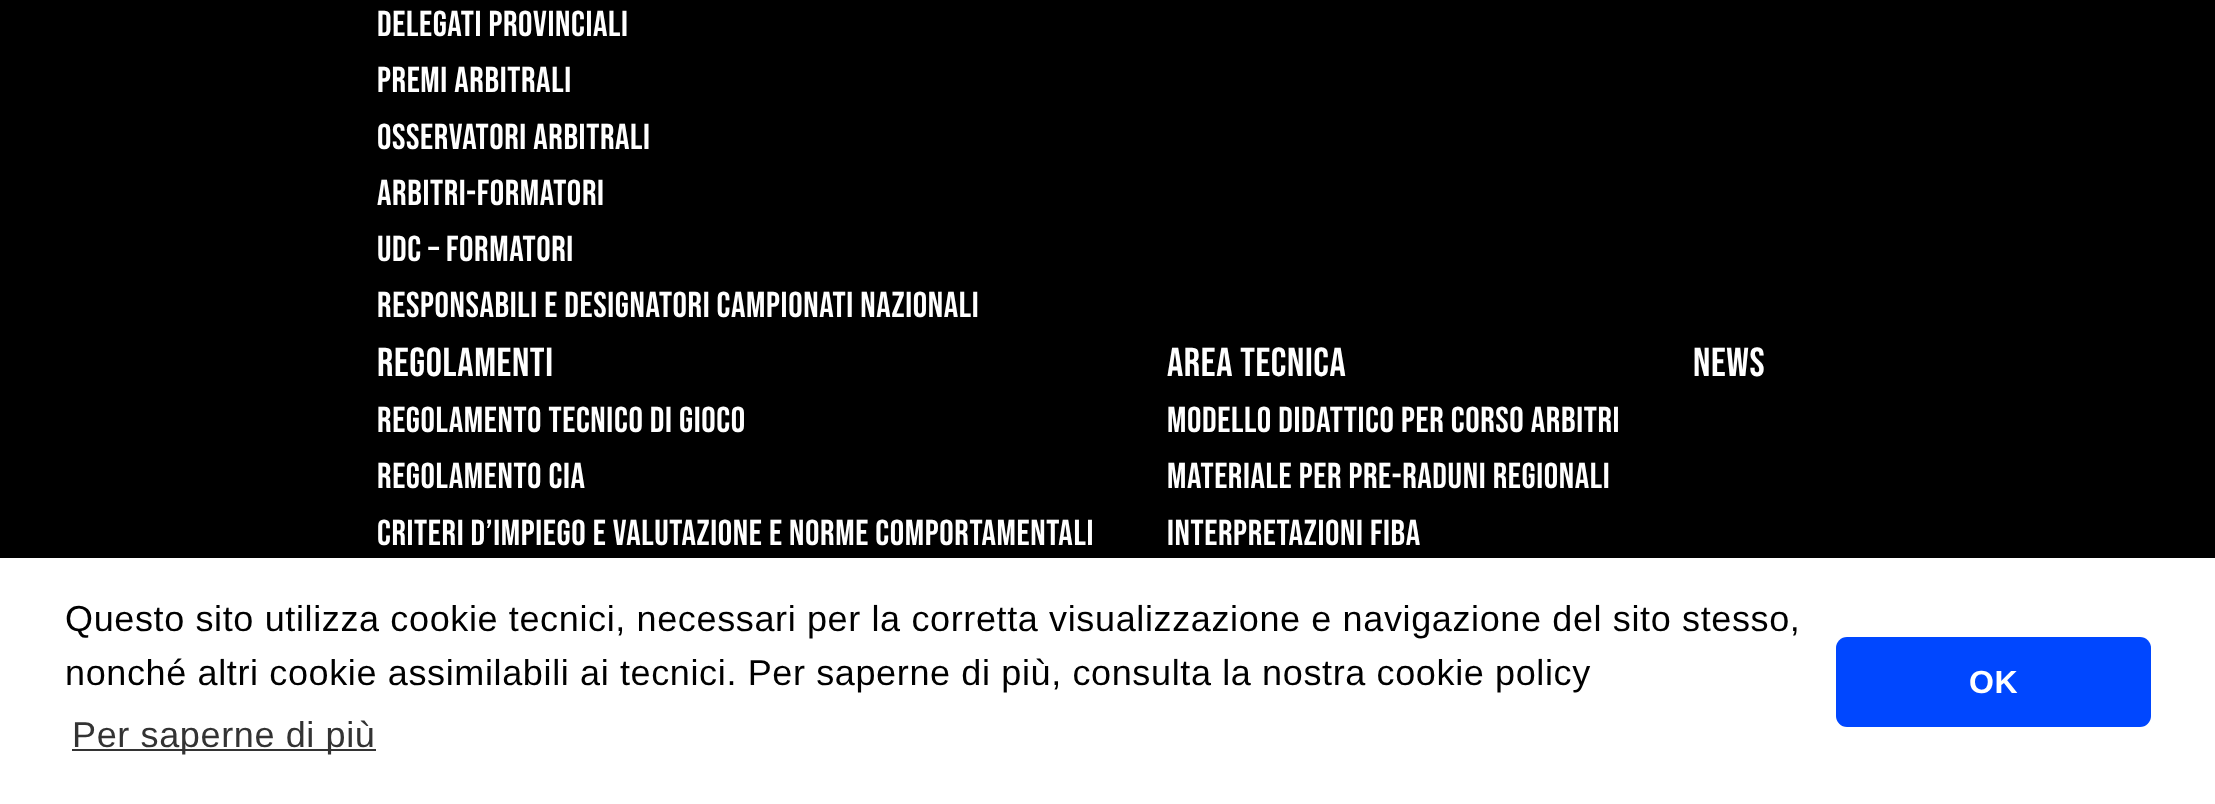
(async () => {
const canvas = document.querySelector("canvas")
canvas.width = 2215
canvas.height = 804
const c = canvas.getContext("2d")
c.miterLimit = 4
c.fontKerning = "normal"
function T(s,x,y){c.fillText(s,x,y)}
function R(x,y,w,h){c.fillRect(x,y,w,h)}
function Q(x,y,w,h,r){c.beginPath();c.roundRect(x,y,w,h,r);c.fill()}
c.fillStyle="#000"
R(0,0,2215,804)
c.letterSpacing="0.63px"
c.font="36px Bebas Neue"
c.fillStyle="#fff"
T("Delegati Provinciali",377,36)
T("Premi arbitrali",377,92)
T("Osservatori Arbitrali",377,149)
T("Arbitri-Formatori",377,205)
T("UdC – Formatori",377,261)
T("Responsabili e Designatori campionati nazionali",377,317)
c.font="40.5px Bebas Neue"
T("Regolamenti",377,376)
c.font="36px Bebas Neue"
T("REGOLAMENTO TECNICO DI GIOCO",377,432)
T("REGOLAMENTO CIA",377,488)
T("CRITERI D’IMPIEGO E VALUTAZIONE E NORME COMPORTAMENTALI",377,545)
c.font="40.5px Bebas Neue"
T("Area Tecnica",1167,376)
c.font="36px Bebas Neue"
T("MODELLO DIDATTICO PER CORSO ARBITRI",1167,432)
T("MATERIALE PER PRE-RADUNI REGIONALI",1167,488)
T("INTERPRETAZIONI FIBA",1167,545)
c.font="40.5px Bebas Neue"
T("News",1693,376)
R(0,558,2215,246)
c.font="36px Liberation Sans"
c.fillStyle="#000"
T("Questo sito utilizza cookie tecnici, necessari per la corretta visualizzazione e navigazione del sito stesso,",65,631)
T("nonché altri cookie assimilabili ai tecnici. Per saperne di più, consulta la nostra cookie policy",65,685)
c.fillStyle="#333"
R(72,749,304,2)
T("Per saperne di più",72,747)
c.fillStyle="#0047ff"
Q(1836,637,315,90,11)
c.font="bold 32px Liberation Sans"
c.fillStyle="#fff"
T("OK",1969,693)
})()
